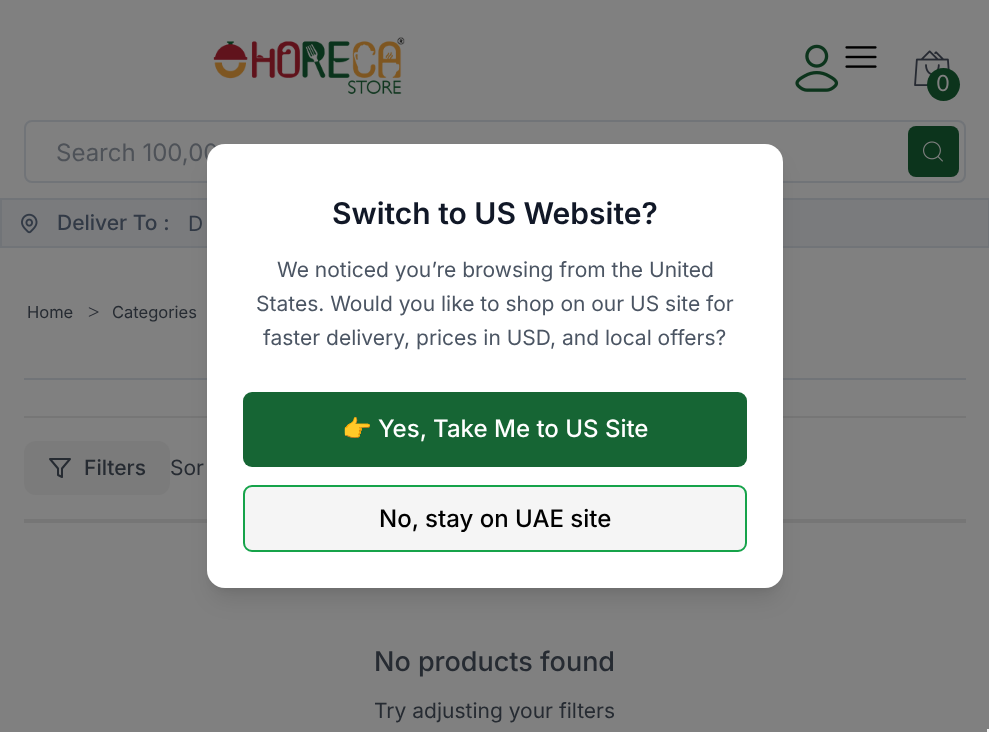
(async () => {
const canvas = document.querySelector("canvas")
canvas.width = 989
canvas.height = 732
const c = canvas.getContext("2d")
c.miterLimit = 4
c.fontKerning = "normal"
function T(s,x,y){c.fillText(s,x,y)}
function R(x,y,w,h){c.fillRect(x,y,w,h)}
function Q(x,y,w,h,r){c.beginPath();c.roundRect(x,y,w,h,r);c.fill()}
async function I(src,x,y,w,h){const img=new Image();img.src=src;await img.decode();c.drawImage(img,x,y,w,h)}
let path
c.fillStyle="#808080"
R(0,0,989,732)
await I("1.png",213,37,192,57)
await I("2.png",795,44,44,48)
await I("3.png",845,46,32,22)
await I("4.png",914,50,36,36)
c.fillStyle="#0c341c"
c.beginPath()
c.arc(943.5,84.5,16.5,0,7)
c.fill()
c.font="22px Inter"
c.fillStyle="#808080"
T("0",936,91)
c.beginPath()
c.roundRect(25,121,940,61,7)
c.strokeStyle="#717478"
c.lineWidth=2
c.stroke()
c.font="24px Inter"
c.fillStyle="#4e5258"
T("Search 100,00",56,161)
c.fillStyle="#0c341c"
Q(908,126,51,51,8)
await I("5.png",923,141,20,21)
c.fillStyle="#7a7b7d"
c.beginPath()
c.rect(1,199,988,48)
c.fill()
c.stroke()
await I("6.png",21,213,17,21)
c.font="500 21px Inter"
c.fillStyle="#323a46"
T("Deliver To :",57,230)
c.font="21px Inter"
T("D",188,231)
c.fillStyle="#717478"
R(24,378,942,2)
c.fillStyle="#767676"
R(24,416,942,2)
R(24,519,942,4)
c.fillStyle="#0000001a"
c.filter="blur(4.5px)"
c.beginPath()
c.roundRect(213,156,564,432,12)
c.fill()
c.filter="none"
c.filter="blur(11px)"
c.beginPath()
c.roundRect(212,164,567,435,14)
c.fill()
c.filter="none"
c.fillStyle="#fff"
Q(207,144,576,444,18)
c.font="600 30px Inter"
c.fillStyle="#111827"
T("Switch to US Website?",332,224)
c.font="21px Inter"
c.fillStyle="#4b5563"
T("We noticed you’re browsing from the United",277,277)
T("States. Would you like to shop on our US site for",256,311)
T("faster delivery, prices in USD, and local offers?",263,345)
c.fillStyle="#166534"
Q(243,392,504,75,9)
c.font="24px Noto Color Emoji"
c.fillStyle="#fff"
T("👉",342,437)
c.font="500 24px Inter"
T("Yes, Take Me to US Site",378,437)
c.fillStyle="#f5f5f5"
c.beginPath()
c.roundRect(244,486,502,65,8)
c.fill()
c.strokeStyle="#16a34a"
c.stroke()
c.fillStyle="#000"
T("No, stay on UAE site",379,527)
c.font="16.5px Inter"
c.fillStyle="#262b32"
T("Home",27,318)
await I("7.png",88,307,11,10)
T("Categories",112,318)
c.fillStyle="#7b7b7b"
Q(24,441,146,54,12)
path = new Path2D("M70 459h-20l8 9.5v6.5l4 2v-8.5z")
c.strokeStyle="#262b32"
c.lineCap="round"
c.lineJoin="round"
c.stroke(path)
c.font="500 21px Inter"
c.fillStyle="#262b32"
T("Filters",84,475)
c.font="21px Inter"
T("Sor",170,475)
c.font="500 27px Inter"
T("No products found",374,671)
c.font="21px Inter"
T("Try adjusting your filters",374,718)
c.fillStyle="#f5f5f5"
R(987,729,2,3)
})()
